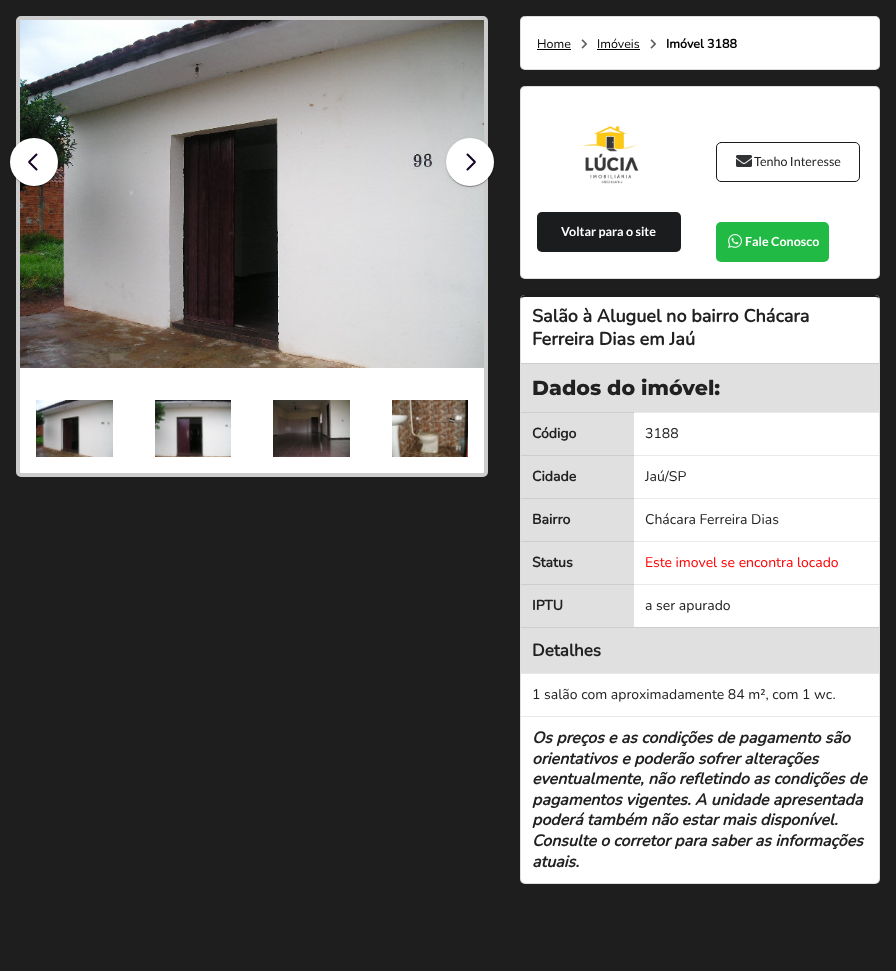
(async () => {
const canvas = document.querySelector("canvas")
canvas.width = 896
canvas.height = 971
const c = canvas.getContext("2d")
c.miterLimit = 4
c.fontKerning = "normal"
function T(s,x,y){c.fillText(s,x,y)}
function R(x,y,w,h){c.fillRect(x,y,w,h)}
function Q(x,y,w,h,r){c.beginPath();c.roundRect(x,y,w,h,r);c.fill()}
async function I(src,x,y,w,h){const img=new Image();img.src=src;await img.decode();c.drawImage(img,x,y,w,h)}
let path
c.fillStyle="#1e1e1e"
R(0,0,896,971)
c.fillStyle="#fff"
c.beginPath()
c.roundRect(18,18,468,457,3)
c.fill()
c.strokeStyle="#ccc"
c.lineWidth=4
c.stroke()
await I("1.png",20,20,464,348)
c.fillStyle="#0000001f"
c.filter="blur(1.5px)"
c.beginPath()
c.roundRect(10,139,48,48,24)
c.fill()
c.filter="none"
c.fillStyle="#00000024"
c.filter="blur(0.5px)"
c.beginPath()
c.roundRect(10,139,48,48,24)
c.fill()
c.filter="none"
c.fillStyle="#00000033"
c.filter="blur(0.5px)"
c.beginPath()
c.roundRect(11,141,46,46,23)
c.fill()
c.filter="none"
c.fillStyle="#fff"
c.beginPath()
c.arc(34,162,24,0,7)
c.fill()
path = new Path2D("M36.5 154.5l-7.5 7.5l7.5 7.5")
c.strokeStyle="#170724"
c.lineWidth=2.1
c.lineCap="round"
c.lineJoin="bevel"
c.stroke(path)
c.fillStyle="#0000001f"
c.filter="blur(1.5px)"
c.beginPath()
c.roundRect(446,139,48,48,24)
c.fill()
c.filter="none"
c.fillStyle="#00000024"
c.filter="blur(0.5px)"
c.beginPath()
c.roundRect(446,139,48,48,24)
c.fill()
c.filter="none"
c.fillStyle="#00000033"
c.filter="blur(0.5px)"
c.beginPath()
c.roundRect(447,141,46,46,23)
c.fill()
c.filter="none"
c.fillStyle="#fff"
c.beginPath()
c.arc(470,162,24,0,7)
c.fill()
path = new Path2D("M467.5 154.5l7.5 7.5l-7.5 7.5")
c.stroke(path)
await I("2.png",36,400,77,57)
await I("3.png",155,400,76,57)
await I("4.png",273,400,77,57)
await I("5.png",392,400,76,57)
Q(520,16,360,54,5)
c.beginPath()
c.roundRect(520.5,16.5,359,53,4.5)
c.strokeStyle="#22242626"
c.lineWidth=1
c.lineJoin="miter"
c.stroke()
c.font="12.5px Nunito"
c.fillStyle="#000"
T("Home",537,48)
R(537,49,34,1)
await I("6.png",581,39,7,10)
T("Imóveis",597,48)
R(597,49,43,1)
await I("6.png",650,39,7,10)
c.font="bold 12.5px Nunito"
T("Imóvel 3188",666,48)
c.fillStyle="#fff"
Q(520,86,360,193,5)
c.beginPath()
c.roundRect(520.5,86.5,359,192,4.5)
c.stroke()
await I("7.png",583,126,56,58)
c.fillStyle="#1b1c1d"
Q(537,212,144,40,5)
c.font="bold 12.5px Lato"
c.fillStyle="#fff"
T("Voltar para o site",561,236)
c.beginPath()
c.roundRect(716.5,142.5,143,39,4.5)
c.strokeStyle="#1b1c1d"
c.stroke()
await I("8.png",736,155,16,12)
c.font="12.5px Lato"
c.fillStyle="#1b1c1d"
T("Tenho Interesse",754,166)
c.fillStyle="#21ba45"
Q(716,222,113,40,5)
await I("9.png",728,234,14,14)
c.font="bold 12.5px Lato"
c.fillStyle="#fff"
T("Fale Conosco",745,246)
Q(520,295,360,589,5)
c.fillStyle="#1b1c1d"
path = new Path2D("M525 295c-2 0-3 1-4 2l1 1c0-1 2-1 3-1h350c1 0 3 0 3 1l1-1c-1-1-2-2-4-2z")
c.fill(path)
c.fillStyle="#22242626"
path = new Path2D("M880 879v-579l-1-3l-1 1l1 2v579l-1 3l1 1c1-1 1-3 1-4z")
c.fill(path)
path = new Path2D("M525 884h350c1 0 3 0 4-1l-1-1l-3 1h-350l-3-1l-1 1c1 1 3 1 4 1z")
c.fill(path)
path = new Path2D("M520 300v579c0 1 0 3 1 4l1-1l-1-3v-579l1-2l-1-1z")
c.fill(path)
c.font="bold 18px Nunito"
c.fillStyle="#212121"
T("Salão à Aluguel no bairro Chácara",532,322)
T("Ferreira Dias em Jaú",532,345)
c.fillStyle="#e0e0e0"
R(521,364,358,48)
c.fillStyle="#cdcdcd"
R(521,363,358,1)
c.font="800 20.5px Montserrat"
c.fillStyle="#212121"
T("Dados do imóvel:",532,395)
c.fillStyle="#e0e0e0"
R(521,413,113,42)
c.fillStyle="#cdcdcd"
R(521,412,113,1)
c.font="bold 14px Nunito"
c.fillStyle="#212121"
T("Código",532,438)
c.fillStyle="#e9e9e9"
R(634,412,245,1)
c.font="14px Nunito"
c.fillStyle="#212121"
T("3188",645,438)
c.fillStyle="#e0e0e0"
R(521,456,113,42)
c.fillStyle="#cdcdcd"
R(521,455,113,1)
c.font="bold 14px Nunito"
c.fillStyle="#212121"
T("Cidade",532,481)
c.fillStyle="#e9e9e9"
R(634,455,245,1)
c.font="14px Nunito"
c.fillStyle="#212121"
T("Jaú/SP",645,481)
c.fillStyle="#e0e0e0"
R(521,499,113,42)
c.fillStyle="#cdcdcd"
R(521,498,113,1)
c.font="bold 14px Nunito"
c.fillStyle="#212121"
T("Bairro",532,524)
c.fillStyle="#e9e9e9"
R(634,498,245,1)
c.font="14px Nunito"
c.fillStyle="#212121"
T("Chácara Ferreira Dias",645,524)
c.fillStyle="#e0e0e0"
R(521,542,113,42)
c.fillStyle="#cdcdcd"
R(521,541,113,1)
c.font="bold 14px Nunito"
c.fillStyle="#212121"
T("Status",532,567)
c.fillStyle="#e9e9e9"
R(634,541,245,1)
c.font="14px Nunito"
c.fillStyle="#f00"
T("Este imovel se encontra locado",645,567)
c.fillStyle="#e0e0e0"
R(521,585,113,42)
c.fillStyle="#cdcdcd"
R(521,584,113,1)
c.font="bold 14px Nunito"
c.fillStyle="#212121"
T("IPTU",532,610)
c.fillStyle="#e9e9e9"
R(634,584,245,1)
c.font="14px Nunito"
c.fillStyle="#212121"
T("a ser apurado",645,610)
c.fillStyle="#e0e0e0"
R(521,628,358,45)
c.fillStyle="#cdcdcd"
R(521,627,358,1)
c.font="bold 17px Nunito"
c.fillStyle="#212121"
T("Detalhes",532,656)
c.fillStyle="#e9e9e9"
R(521,673,358,1)
c.font="14px Nunito"
c.fillStyle="#212121"
T("1 salão com aproximadamente 84 m², com 1 wc.",532,699)
c.fillStyle="#e9e9e9"
R(521,716,358,1)
c.font="italic bold 16px Nunito"
c.fillStyle="#212121"
T("Os preços e as condições de pagamento são",532,743)
T("orientativos e poderão sofrer alterações",532,764)
T("eventualmente, não refletindo as condições de",532,784)
T("pagamentos vigentes. A unidade apresentada",532,805)
T("poderá também não estar mais disponível.",532,825)
T("Consulte o corretor para saber as informações",532,846)
T("atuais.",532,867)
})()
